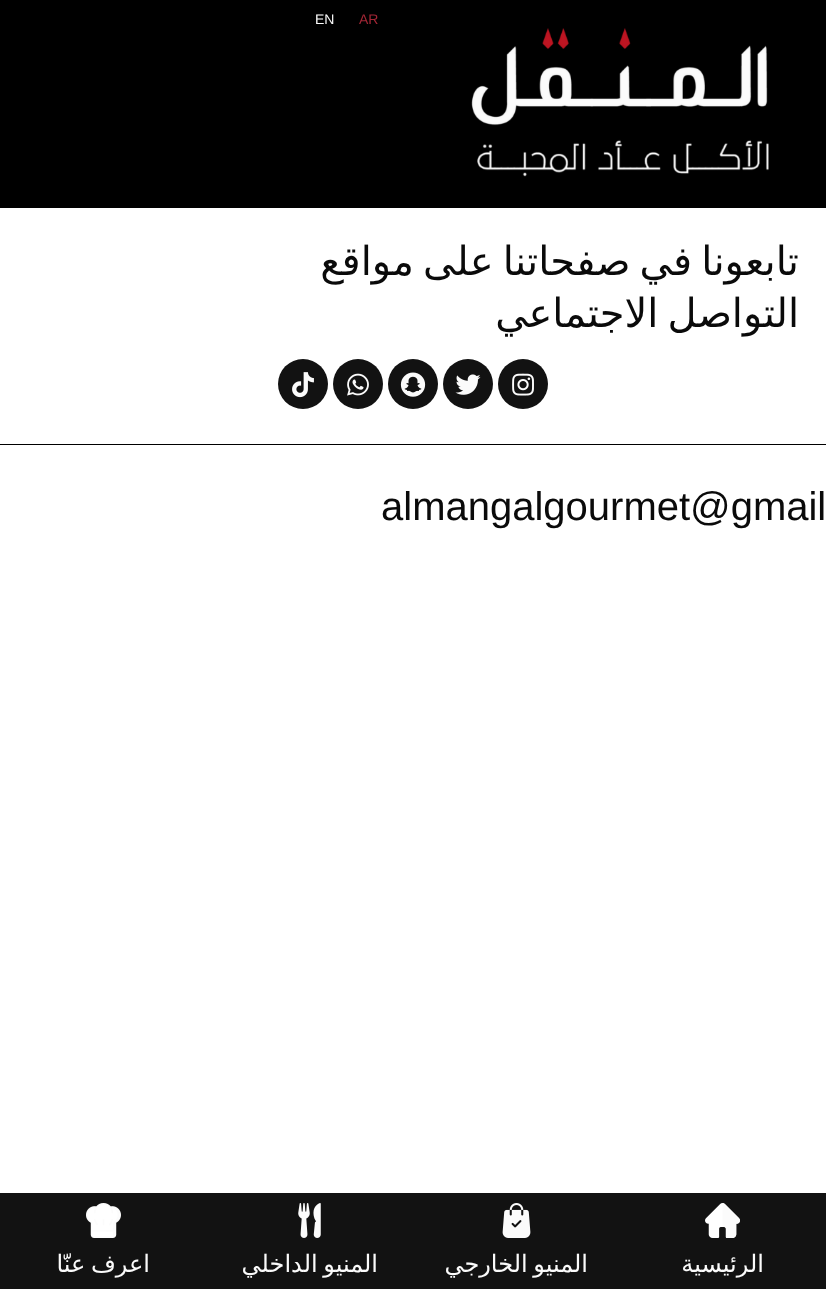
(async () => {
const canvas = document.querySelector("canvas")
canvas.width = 826
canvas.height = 1289
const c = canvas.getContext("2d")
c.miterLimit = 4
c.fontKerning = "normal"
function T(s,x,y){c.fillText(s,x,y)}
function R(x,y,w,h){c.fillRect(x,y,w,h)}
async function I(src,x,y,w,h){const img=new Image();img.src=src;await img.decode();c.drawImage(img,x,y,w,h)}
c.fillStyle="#fff"
R(0,0,826,1289)
c.fillStyle="#000"
R(0,0,826,208)
c.font="14px Liberation Sans"
c.fillStyle="#a22635"
T("AR",359,24)
c.fillStyle="#fbfbfb"
T("EN",315,24)
await I("1.png",471,28,298,149)
c.wordSpacing="-3.5px"
c.direction="rtl"
c.font="40px DejaVu Sans"
c.fillStyle="#0a0a0a"
T("تابعونا في صفحاتنا على مواقع",799,275)
T("التواصل الاجتماعي",799,327)
c.fillStyle="#121212"
c.beginPath()
c.arc(523,384,25,0,7)
c.fill()
await I("2.png",512,373,22,23)
c.beginPath()
c.arc(468,384,25,0,7)
c.fill()
await I("3.png",455,374,26,21)
c.beginPath()
c.arc(413,384,25,0,7)
c.fill()
await I("4.png",400,372,26,25)
c.beginPath()
c.arc(358,384,25,0,7)
c.fill()
await I("5.png",347,373,22,23)
c.beginPath()
c.arc(303,384,25,0,7)
c.fill()
await I("6.png",292,372,22,26)
c.fillStyle="#000"
R(0,444,826,1)
c.wordSpacing="0px"
c.direction="ltr"
c.font="40px Liberation Sans"
c.fillStyle="#0a0a0a"
T("almangalgourmet@gmail",381,520)
c.fillStyle="#121212"
R(0,1193,826,96)
await I("7.png",705,1203,35,35)
c.direction="rtl"
c.font="24px DejaVu Sans"
c.fillStyle="#fbfbfb"
T("الرئيسية",764,1272)
await I("8.png",502,1203,29,35)
c.wordSpacing="-2px"
T("المنيو الخارجي",588,1272)
await I("9.png",298,1203,23,35)
T("المنيو الداخلي",378,1272)
await I("10.png",86,1203,35,35)
T("اعرف عنّا",150,1272)
})()
